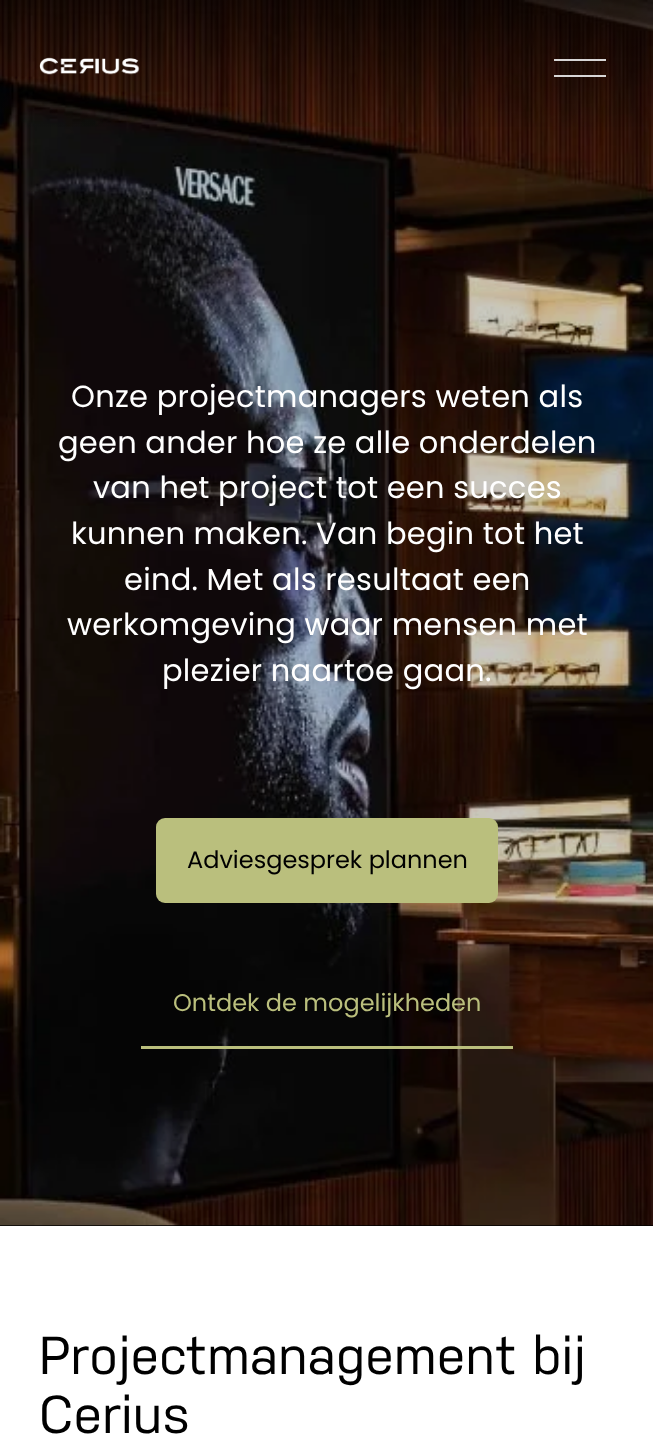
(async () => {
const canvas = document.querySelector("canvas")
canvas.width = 653
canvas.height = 1452
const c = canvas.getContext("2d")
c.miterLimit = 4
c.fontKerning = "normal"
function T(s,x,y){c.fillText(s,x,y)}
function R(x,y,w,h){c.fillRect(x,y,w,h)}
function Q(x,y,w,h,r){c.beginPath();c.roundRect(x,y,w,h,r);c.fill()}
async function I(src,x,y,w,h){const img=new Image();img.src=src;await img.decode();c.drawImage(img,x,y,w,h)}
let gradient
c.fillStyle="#fff"
R(0,0,653,1452)
c.fillStyle="#000"
R(0,1225,653,1)
await I("2.png",0,0,653,1226)
gradient = c.createLinearGradient(327,0,327,134)
gradient.addColorStop(0,"#000000a3")
gradient.addColorStop(1,"#00000000")
c.fillStyle = gradient
R(0,0,653,127)
await I("1.png",39,57,101,18)
c.fillStyle="#e2e2e2f2"
R(554,59,52,2)
R(554,75,52,2)
c.letterSpacing="0.25px"
c.font="30.5px Poppins"
c.fillStyle="#fff"
T("Onze projectmanagers weten als",71,407)
T("geen ander hoe ze alle onderdelen",58,453)
T("van het project tot een succes",93,498)
T("kunnen maken. Van begin tot het",71,544)
T("eind. Met als resultaat een",124,590)
T("werkomgeving waar mensen met",67,635)
T("plezier naartoe gaan.",162,681)
c.fillStyle="#babf7d"
Q(156,818,342,85,9)
c.letterSpacing="0px"
c.font="24px Poppins"
c.fillStyle="#000"
T("Adviesgesprek plannen",187,868)
c.fillStyle="#babf7d"
R(141,1046,372,3)
T("Ontdek de mogelijkheden",173,1011)
c.font="500 53.25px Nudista"
c.fillStyle="#000"
T("Projectmanagement bij",39,1374)
T("Cerius",39,1433)
})()
